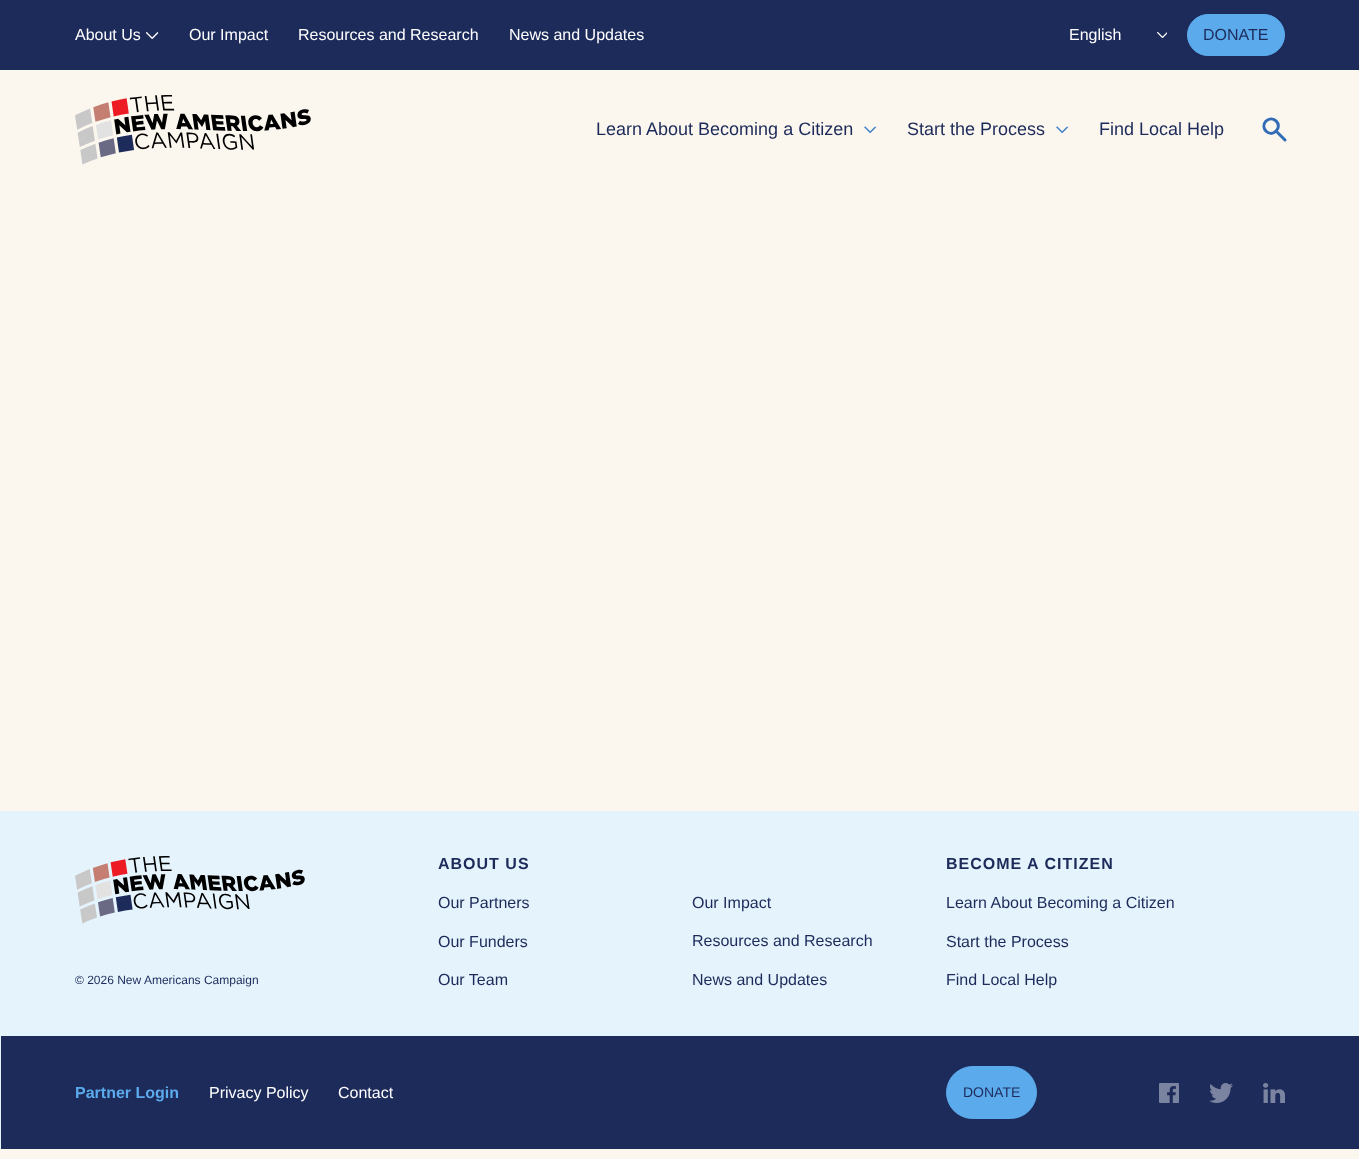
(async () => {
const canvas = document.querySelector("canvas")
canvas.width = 1359
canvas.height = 1159
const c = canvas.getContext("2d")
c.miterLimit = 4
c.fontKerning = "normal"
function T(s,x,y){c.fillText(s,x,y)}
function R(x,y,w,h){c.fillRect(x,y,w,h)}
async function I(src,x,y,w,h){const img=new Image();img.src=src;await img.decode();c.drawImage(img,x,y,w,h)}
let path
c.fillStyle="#fbf7ee"
R(0,0,1359,1159)
c.fillStyle="#1d2b5b"
R(0,0,1359,70)
c.font="16px Liberation Sans"
c.fillStyle="#fff"
T("About Us",75,40)
await I("1.png",146,32,13,7)
T("Our Impact",189,40)
T("Resources and Research",298,40)
T("News and Updates",509,40)
T("English",1069,40)
await I("2.png",1157,32,10,6)
c.fillStyle="#5baaec"
c.beginPath()
c.roundRect(1187.5,14.5,97,41,20.5)
c.fill()
c.strokeStyle="#5baaec"
c.stroke()
c.fillStyle="#1d2b5b"
T("DONATE",1203,40)
await I("3.png",75,95,236,70)
c.font="18px Liberation Sans"
T("Learn About Becoming a Citizen",596,135)
await I("4.png",864,126,12,7)
T("Start the Process",907,135)
await I("4.png",1056,126,12,7)
T("Find Local Help",1099,135)
path = new Path2D("M1266 121c7-6.5 17 3.5 10 10c-6.5 7-16.5-3-10-10z")
c.strokeStyle="#326cb7"
c.lineWidth=3
c.stroke(path)
path = new Path2D("M1277.5 132.5l7.5 7.5")
c.lineCap="round"
c.stroke(path)
c.fillStyle="#e5f3fc"
R(0,811,1359,338)
await I("5.png",75,856,230,68)
c.font="12px Liberation Sans"
c.fillStyle="#1d2b5b"
T("© 2026 New Americans Campaign",75,984)
c.letterSpacing="1px"
c.font="bold 16px Liberation Sans"
T("ABOUT US",438,869)
c.letterSpacing="0px"
c.font="16px Liberation Sans"
T("Our Partners",438,908)
T("Our Funders",438,947)
T("Our Team",438,985)
T("Our Impact",692,908)
T("Resources and Research",692,946)
T("News and Updates",692,985)
c.letterSpacing="1px"
c.font="bold 16px Liberation Sans"
T("BECOME A CITIZEN",946,869)
c.letterSpacing="0px"
c.font="16px Liberation Sans"
T("Learn About Becoming a Citizen",946,908)
T("Start the Process",946,947)
T("Find Local Help",946,985)
R(1,1036,1358,113)
c.font="bold 16px Liberation Sans"
c.fillStyle="#5baaec"
T("Partner Login",75,1098)
c.font="16px Liberation Sans"
c.fillStyle="#fff"
T("Privacy Policy",209,1098)
T("Contact",338,1098)
c.fillStyle="#5baaec"
c.beginPath()
c.roundRect(946.5,1066.5,90,52,26)
c.fill()
c.strokeStyle="#5baaec"
c.lineWidth=1
c.stroke()
c.font="14px Liberation Sans"
c.fillStyle="#1d2b5b"
T("DONATE",963,1097)
await I("6.png",1159,1083,20,20)
await I("7.png",1209,1083,24,20)
await I("8.png",1263,1083,22,20)
})()
